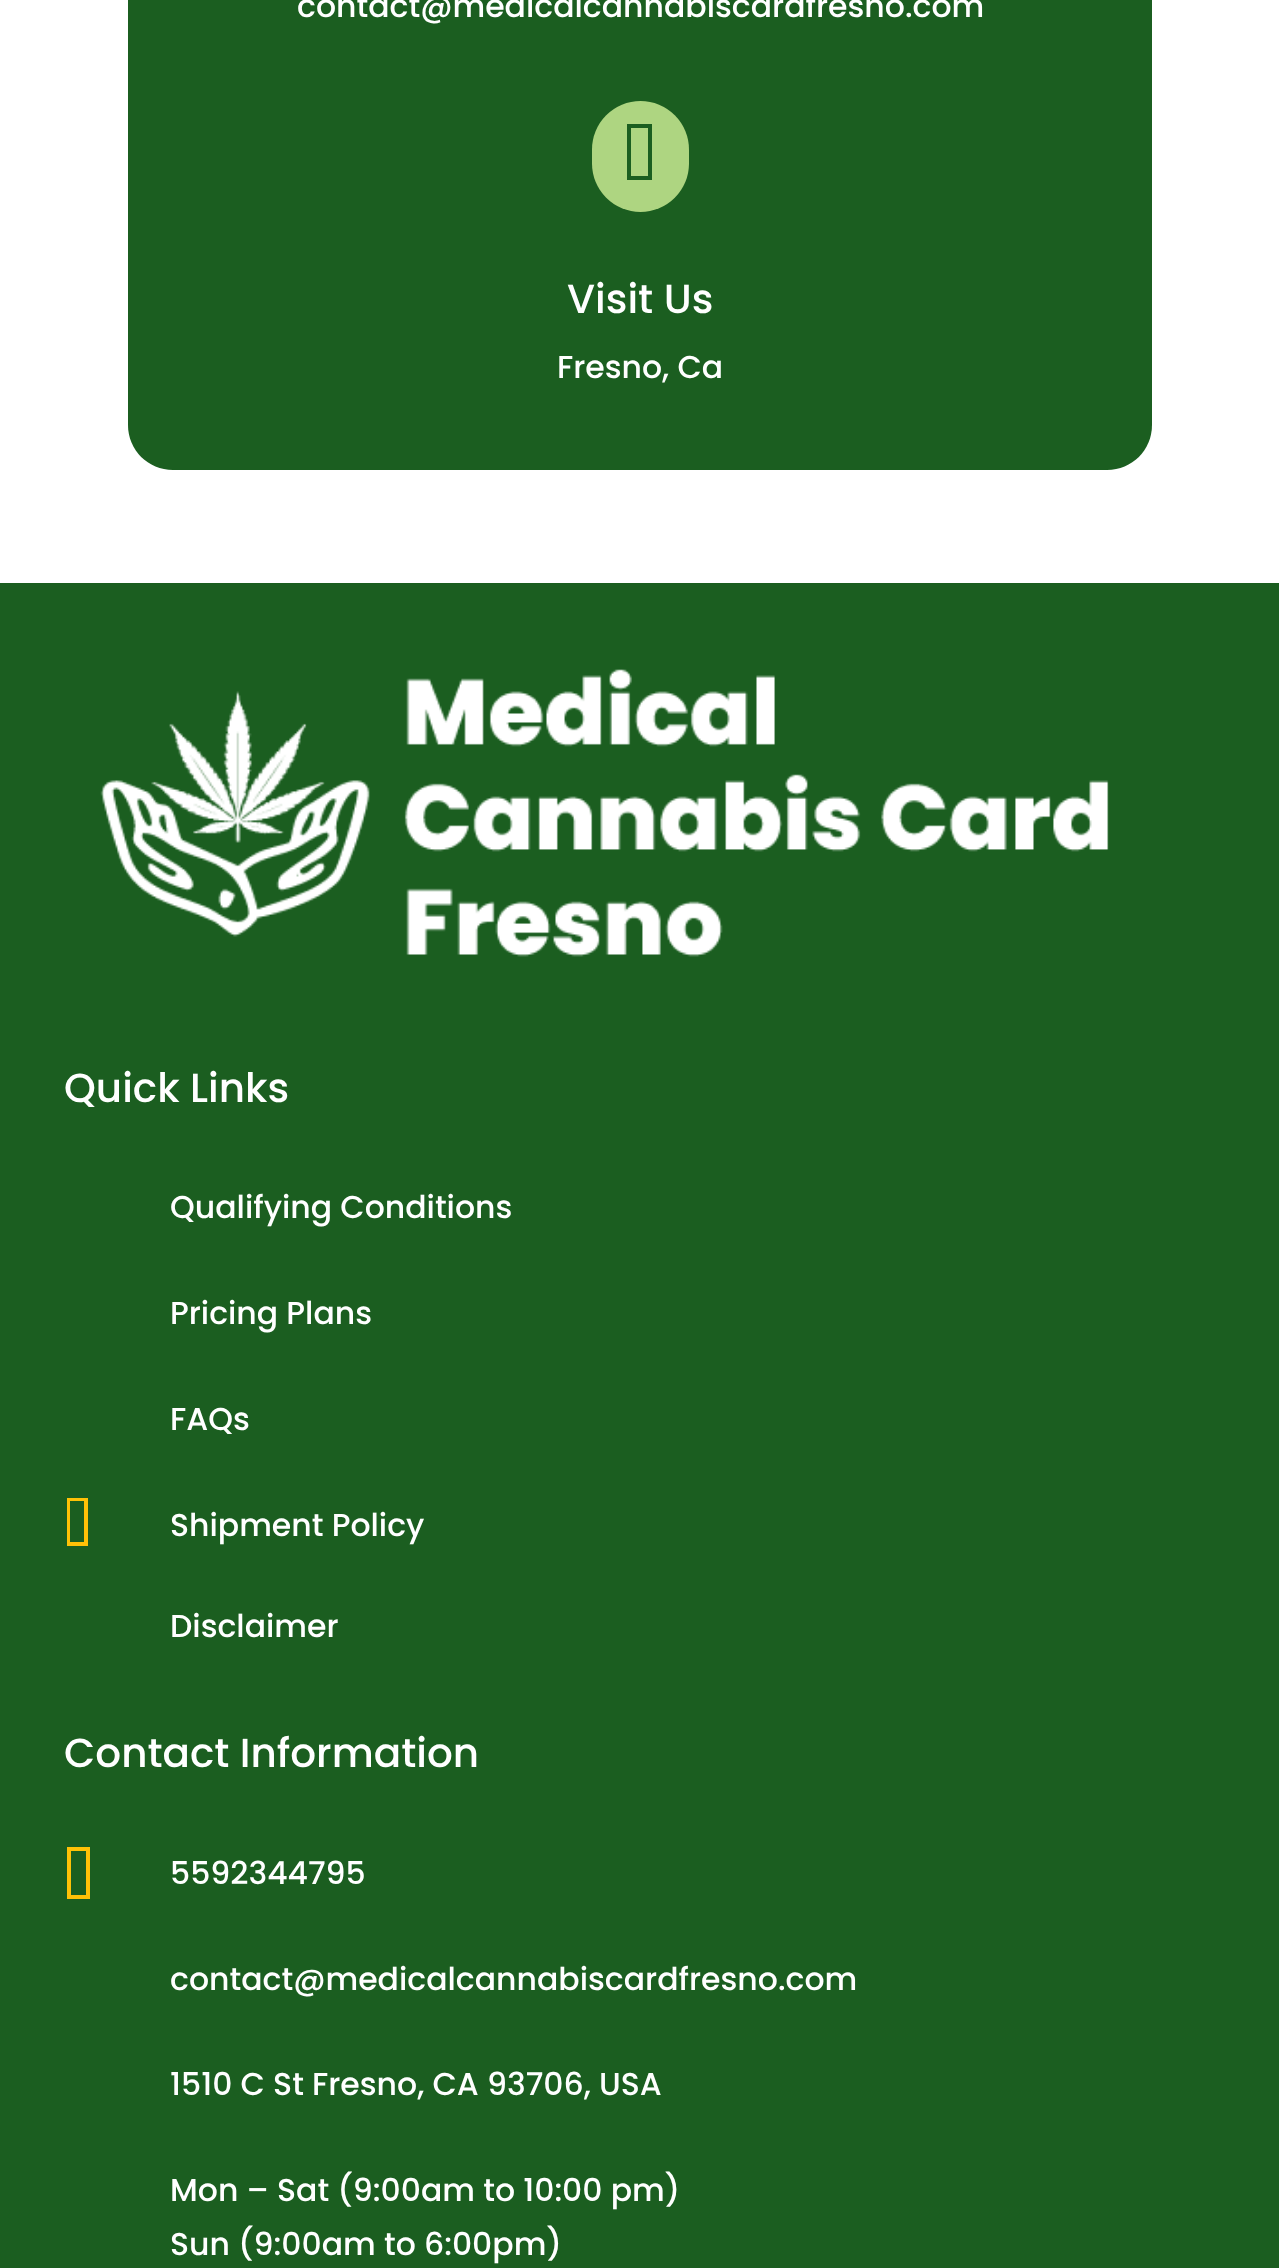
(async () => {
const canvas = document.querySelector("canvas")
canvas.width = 1279
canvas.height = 2268
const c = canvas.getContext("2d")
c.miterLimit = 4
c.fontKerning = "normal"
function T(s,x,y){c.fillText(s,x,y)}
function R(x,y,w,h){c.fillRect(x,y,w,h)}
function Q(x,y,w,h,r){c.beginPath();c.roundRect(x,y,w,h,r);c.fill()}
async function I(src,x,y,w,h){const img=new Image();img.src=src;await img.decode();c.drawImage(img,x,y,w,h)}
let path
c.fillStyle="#fff"
R(0,0,1279,2268)
c.fillStyle="#1b5e20"
path = new Path2D("M128-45h1024v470c0 25-20 45-45 45h-934c-25 0-45-20-45-45z")
c.fill(path)
c.font="500 31.5px Poppins"
c.fillStyle="#fff"
T("contact@medicalcannabiscardfresno.com",297,17)
c.fillStyle="#aed581"
Q(592,101,97,111,48.5)
c.fillStyle="#1b5e20"
path = new Path2D("M631 176v-48h17v48zm-4 4h25v-56h-25z")
c.fill(path)
c.font="500 40.5px Poppins"
c.fillStyle="#fff"
T("Visit Us",567,313)
c.font="500 31.5px Poppins"
T("Fresno, Ca",557,378)
c.fillStyle="#1b5e20"
R(0,583,1279,1685)
await I("1.png",100,669,1009,288)
c.font="500 40.5px Poppins"
c.fillStyle="#fff"
T("Quick Links",64,1102)
c.font="500 31.5px Poppins"
T("Qualifying Conditions",170,1218)
T("Pricing Plans",170,1324)
T("FAQs",170,1430)
c.fillStyle="#ffc107"
path = new Path2D("M70 1542v-41h14v41zm-3 4h21v-48h-21z")
c.fill(path)
c.fillStyle="#fff"
T("Shipment Policy",170,1536)
T("Disclaimer",170,1637)
c.font="500 40.5px Poppins"
T("Contact Information",64,1767)
c.fillStyle="#ffc107"
path = new Path2D("M71 1895v-44h15v44zm-4 4h23v-52h-23z")
c.fill(path)
c.font="500 31.5px Poppins"
c.fillStyle="#fff"
T("5592344795",170,1884)
T("contact@medicalcannabiscardfresno.com",170,1990)
T("1510 C St Fresno, CA 93706, USA",170,2095)
T("Mon – Sat (9:00am to 10:00 pm)",170,2201)
T("Sun (9:00am to 6:00pm)",170,2255)
})()
